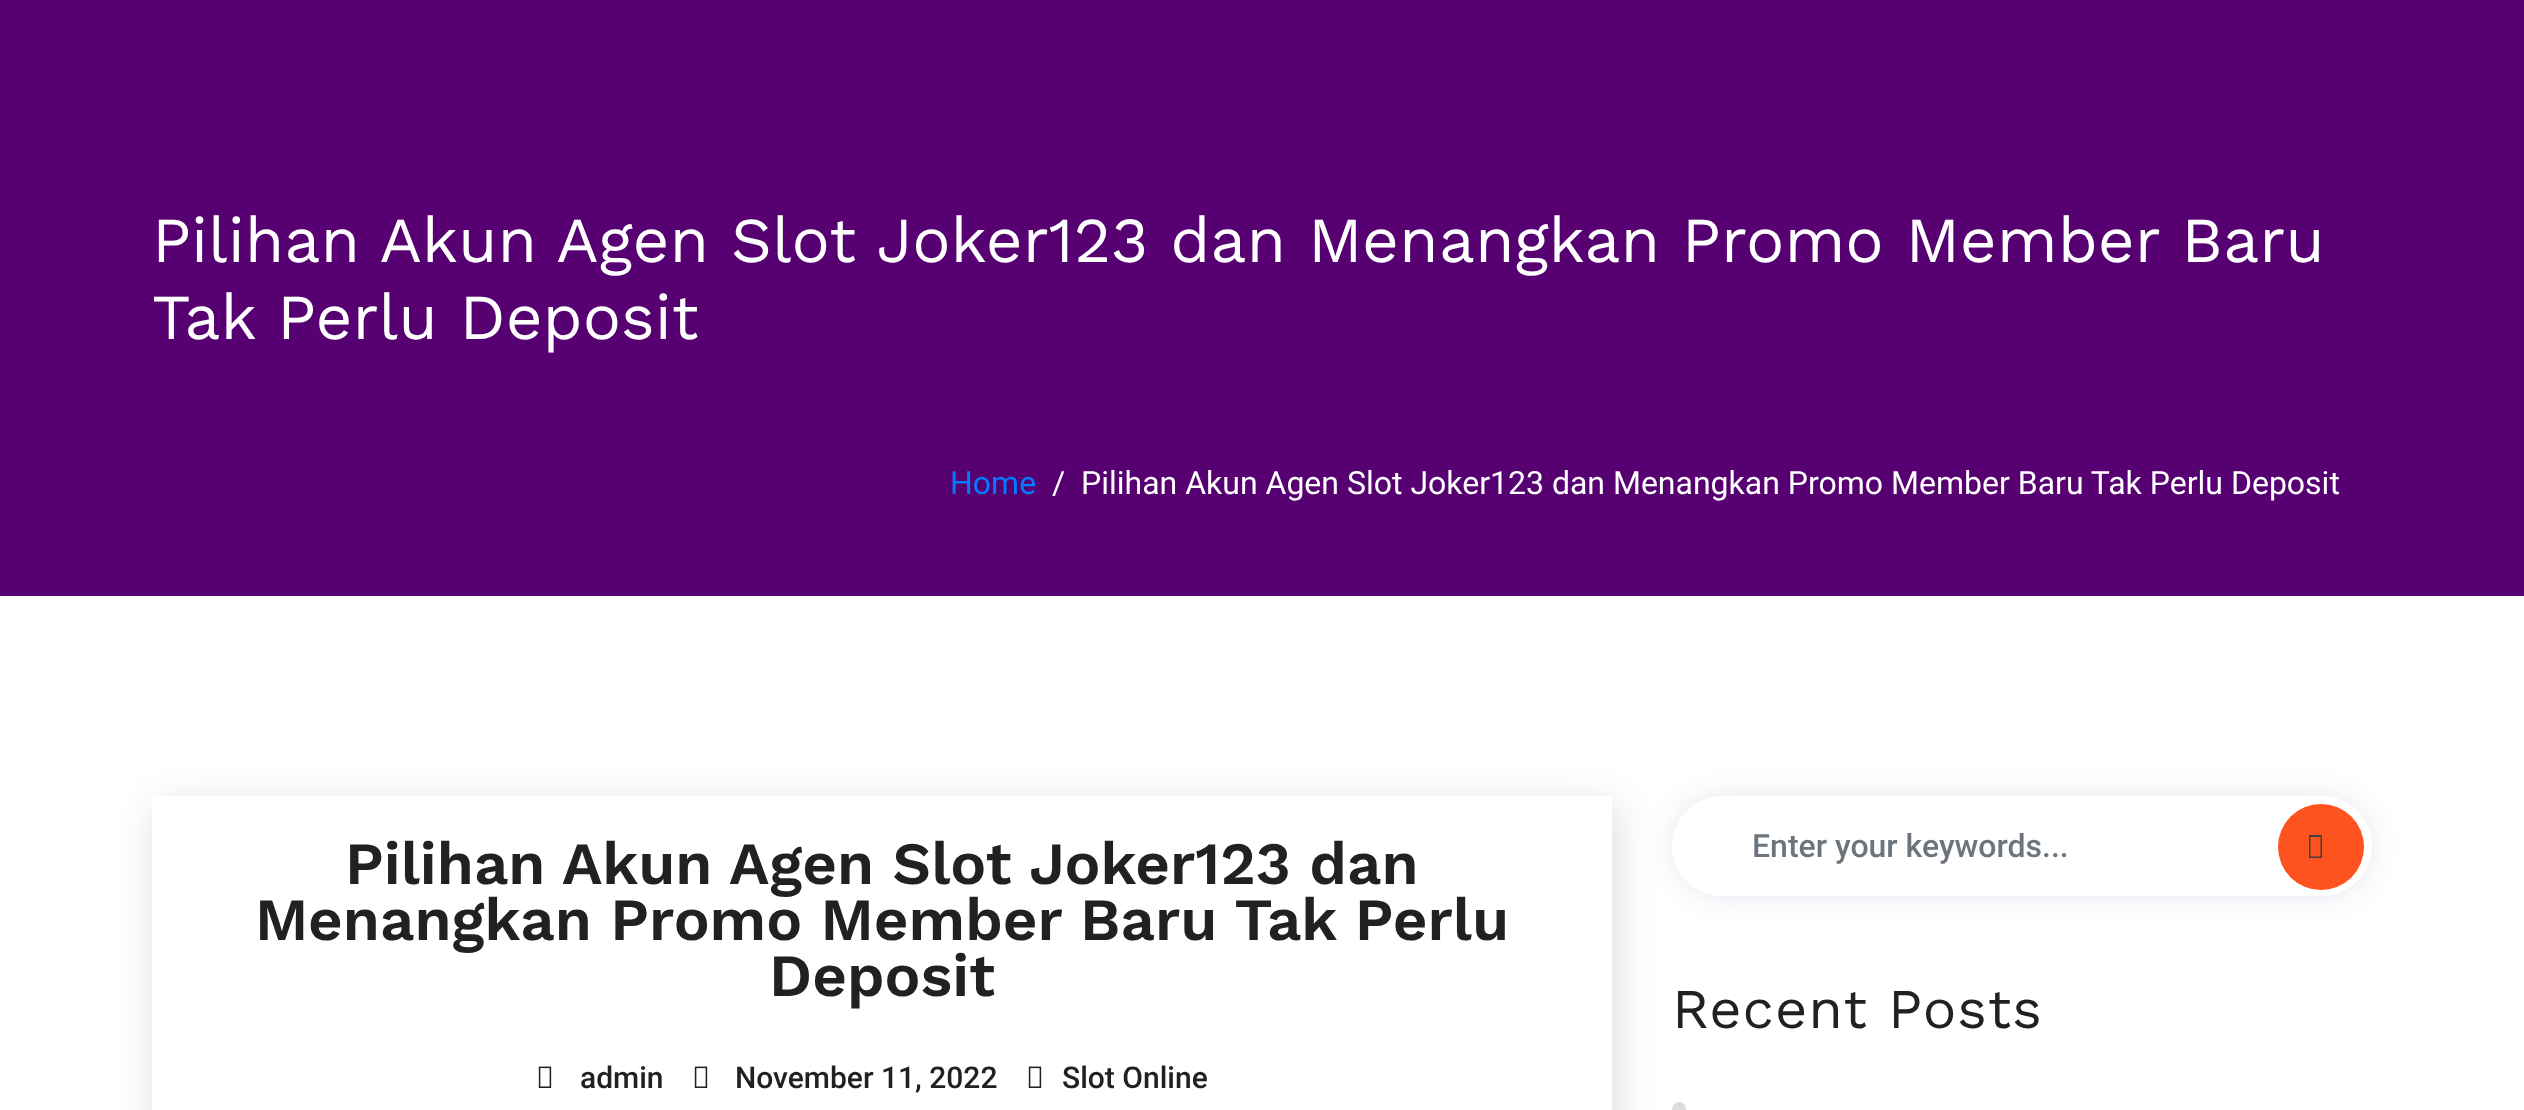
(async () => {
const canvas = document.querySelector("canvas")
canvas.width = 2524
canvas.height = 1110
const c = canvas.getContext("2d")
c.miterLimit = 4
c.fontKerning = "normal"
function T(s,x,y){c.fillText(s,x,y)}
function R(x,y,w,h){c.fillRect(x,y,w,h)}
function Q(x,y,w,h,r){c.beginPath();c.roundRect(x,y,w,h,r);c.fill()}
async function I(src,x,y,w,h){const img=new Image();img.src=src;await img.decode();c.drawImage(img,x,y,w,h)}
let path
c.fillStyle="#fff"
R(0,0,2524,1110)
c.fillStyle="#560072"
R(0,0,2524,596)
c.font="64px Work Sans"
c.fillStyle="#fff"
T("Pilihan Akun Agen Slot Joker123 dan Menangkan Promo Member Baru",152,262)
T("Tak Perlu Deposit",152,339)
c.font="32px Roboto"
c.fillStyle="#007bff"
T("Home",950,494)
c.fillStyle="#fff"
T("/",1052,494)
T("Pilihan Akun Agen Slot Joker123 dan Menangkan Promo Member Baru Tak Perlu Deposit",1081,494)
c.save()
path = new Path2D("M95 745h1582v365h-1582zm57 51h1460v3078h-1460z")
c.clip(path,"evenodd")
c.fillStyle="#00000024"
c.filter="blur(20px)"
c.beginPath()
c.rect(156,806,1460,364)
c.fill()
c.filter="none"
c.restore()
c.font="600 60px Work Sans"
c.fillStyle="#212121"
T("Pilihan Akun Agen Slot Joker123 dan",345,884)
T("Menangkan Promo Member Baru Tak Perlu",255,940)
T("Deposit",769,996)
await I("1.png",538,1066,14,22)
c.font="500 30px Roboto"
T("admin",580,1088)
await I("1.png",694,1066,14,22)
T("November 11, 2022",735,1088)
await I("1.png",1028,1066,14,22)
T("Slot Online",1062,1088)
c.fillStyle="#2f025e1a"
c.filter="blur(15px)"
c.beginPath()
c.roundRect(1672,796,700,100,50)
c.fill()
c.filter="none"
c.fillStyle="#fff"
Q(1672,796,700,100,50)
c.font="500 32px Roboto"
c.fillStyle="#6c757d"
T("Enter your keywords...",1752,857)
c.fillStyle="#ff531f"
c.beginPath()
c.arc(2321,847,43,0,7)
c.fill()
c.fillStyle="#404040"
path = new Path2D("M2309 858v-23h13v23zm1.5-1.5h10v-19.5h-10z")
c.fill(path)
c.letterSpacing="1px"
c.font="56px Work Sans"
c.fillStyle="#212121"
T("Recent Posts",1672,1028)
c.fillStyle="#dcdcdc"
c.beginPath()
c.arc(1679,1109,7,0,7)
c.fill()
})()
